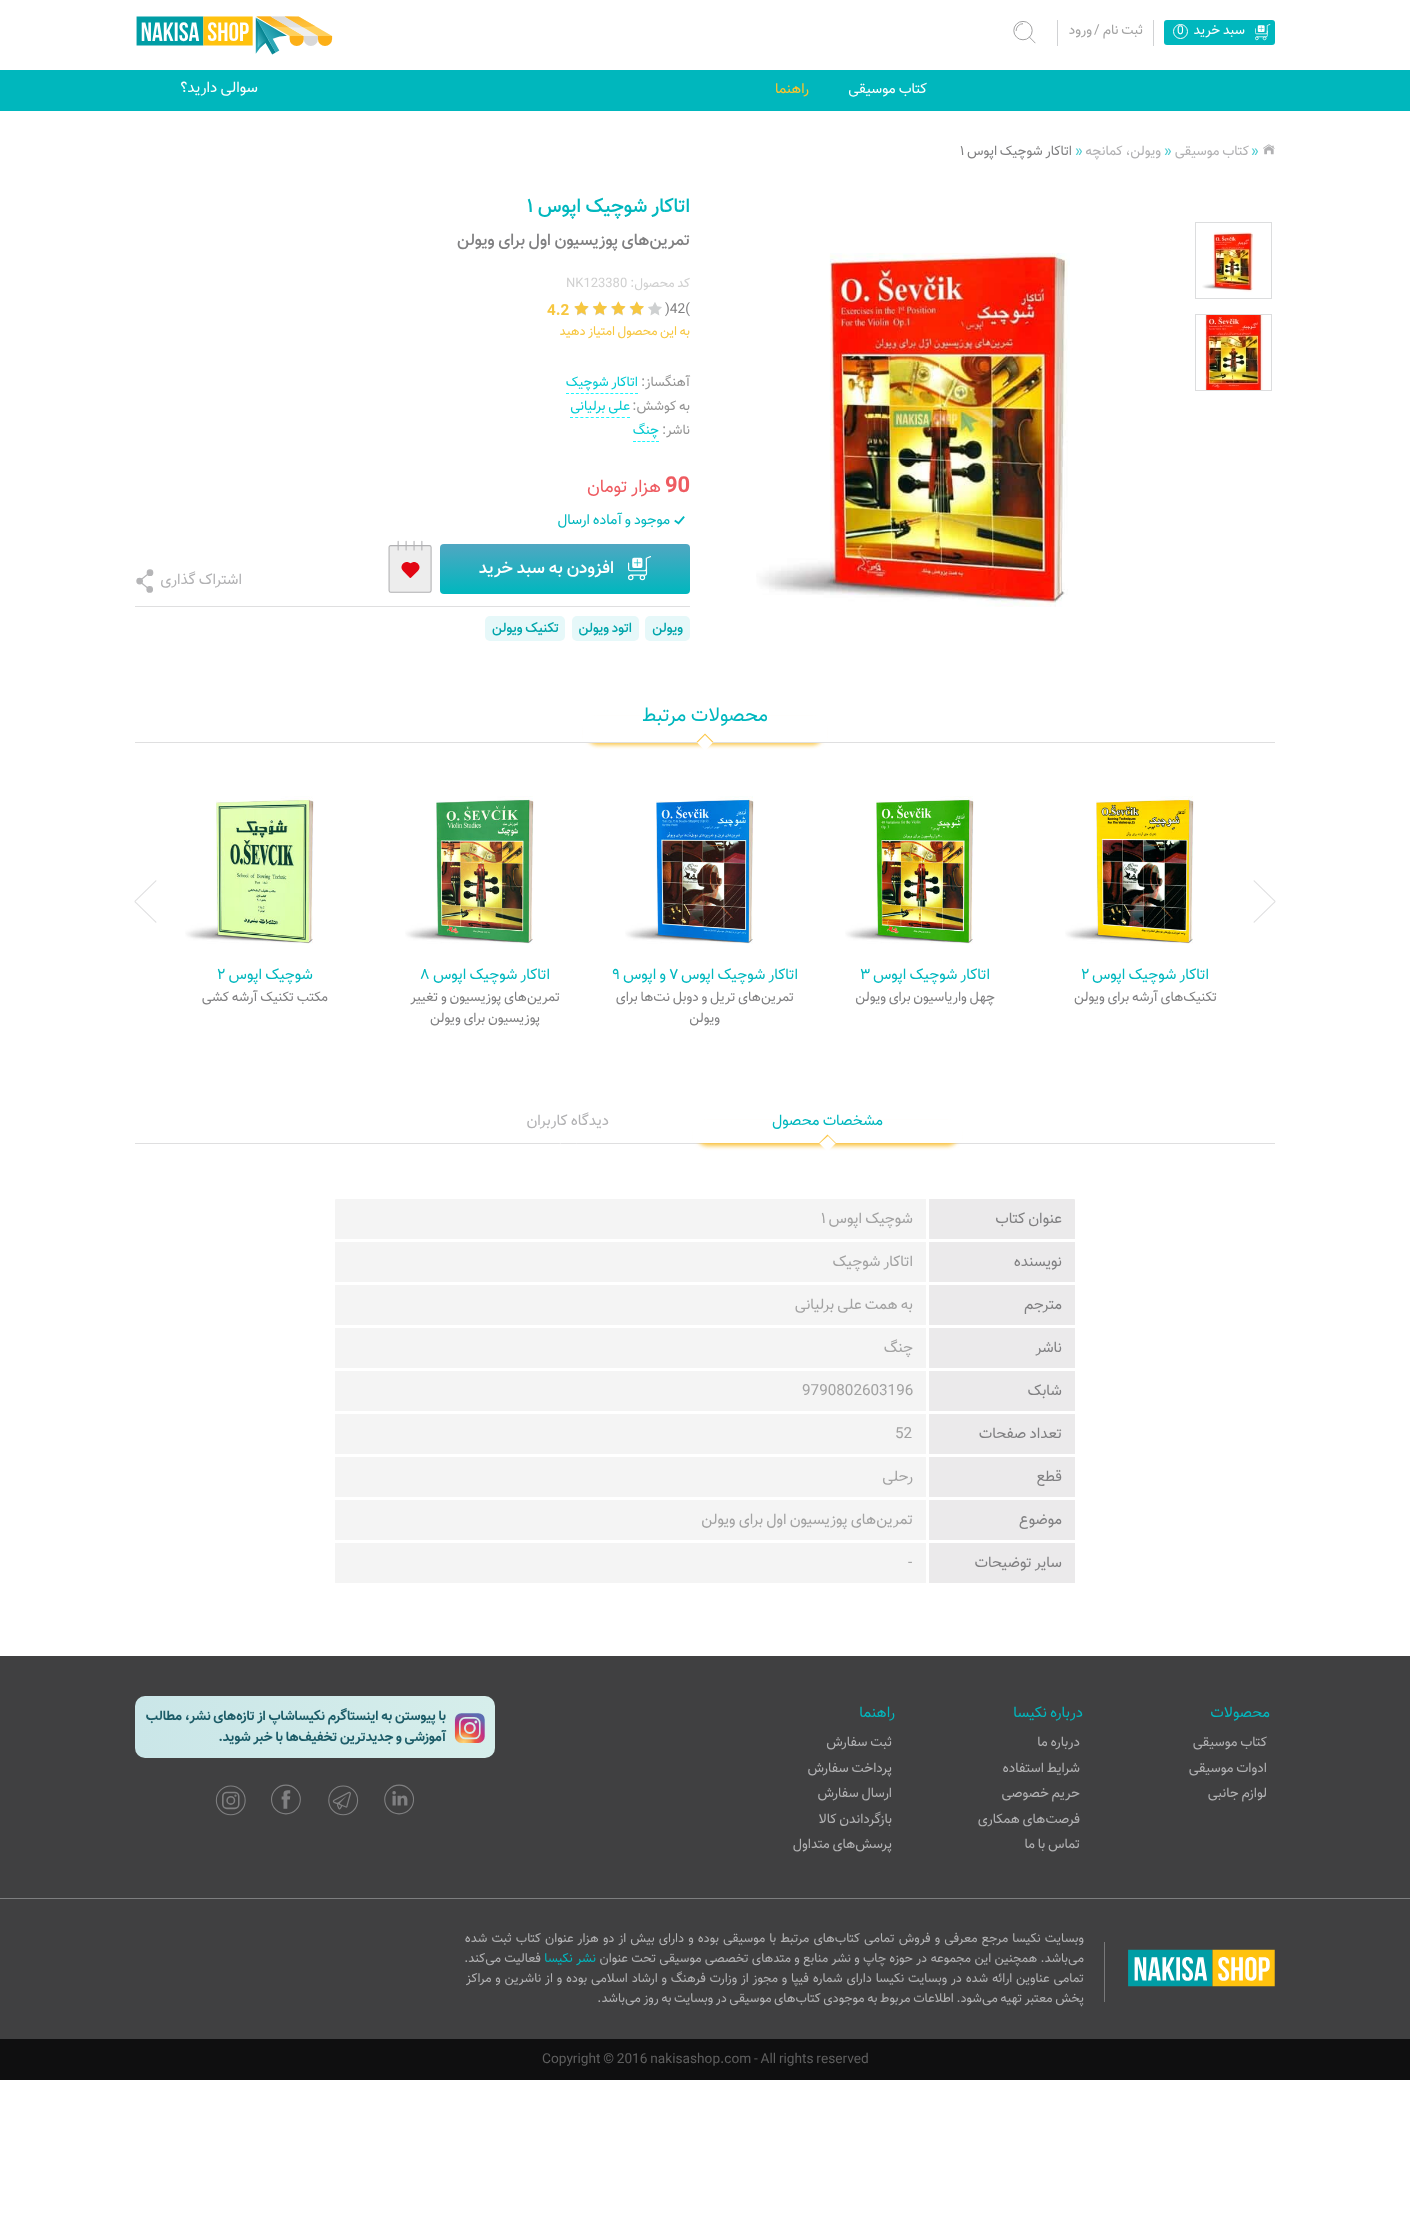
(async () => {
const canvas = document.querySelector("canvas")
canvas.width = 1410
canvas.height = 2232
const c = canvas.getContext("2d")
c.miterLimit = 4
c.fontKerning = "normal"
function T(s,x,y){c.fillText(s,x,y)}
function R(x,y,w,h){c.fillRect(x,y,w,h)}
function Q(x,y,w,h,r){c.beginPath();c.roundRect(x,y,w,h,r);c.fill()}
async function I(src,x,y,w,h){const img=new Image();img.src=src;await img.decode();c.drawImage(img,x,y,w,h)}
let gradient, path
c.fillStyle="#fff"
R(0,0,1410,2232)
c.fillStyle="#00b7be"
Q(1164,20,111,25,3)
await I("1.png",1255,24,16,17)
c.wordSpacing="-1px"
c.direction="rtl"
c.font="13.7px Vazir"
c.fillStyle="#fff"
T("سبد خرید",1245,34)
c.beginPath()
c.arc(1180.5,31.5,7,0,7)
c.strokeStyle="#fff"
c.stroke()
c.wordSpacing="0px"
c.direction="ltr"
c.font="12px Vazir"
T("0",1177,34)
c.fillStyle="#d1d2d4"
R(1153,20,1,26)
c.wordSpacing="-1px"
c.direction="rtl"
c.font="13.7px Vazir"
c.fillStyle="#a2a2a2"
T("ثبت نام",1143,34)
c.wordSpacing="0px"
c.direction="ltr"
T("/",1094,34)
c.direction="rtl"
T("ورود",1092,34)
c.fillStyle="#d1d2d4"
R(1057,20,1,26)
await I("2.png",1013,21,23,23)
await I("3.png",136,16,197,39)
c.fillStyle="#00b7bd"
R(0,70,1410,41)
c.wordSpacing="-1px"
c.font="14.5px Vazir"
c.fillStyle="#fff"
T("کتاب موسیقی",927,93)
c.wordSpacing="0px"
c.fillStyle="#fec32b"
T("راهنما",809,93)
c.wordSpacing="-1px"
c.font="15.25px Vazir"
c.fillStyle="#fff"
T("سوالی دارید؟",258,92)
await I("4.png",1263,144,12,11)
c.wordSpacing="0px"
c.direction="ltr"
c.font="13.7px Vazir"
c.fillStyle="#4fcdd2"
T("»",1251,155)
c.wordSpacing="-1px"
c.direction="rtl"
c.fillStyle="#b1b1b3"
T("کتاب موسیقی",1249,155)
c.wordSpacing="0px"
c.direction="ltr"
c.fillStyle="#4fcdd2"
T("»",1164,155)
c.wordSpacing="-1px"
c.direction="rtl"
c.fillStyle="#b1b1b3"
T("ویولن، کمانچه",1161,155)
c.wordSpacing="0px"
c.direction="ltr"
c.fillStyle="#4fcdd2"
T("»",1075,155)
c.wordSpacing="-1px"
c.direction="rtl"
c.fillStyle="#808082"
T("اتاکار شوچیک اپوس",1072,155)
c.wordSpacing="0px"
c.direction="ltr"
T("۱",960,155)
c.strokeStyle="#dcddde"
c.strokeRect(1195.5,222.5,76,76)
await I("5.png",1202,232,51,60)
c.strokeRect(1195.5,314.5,76,76)
await I("6.png",1205,315,58,75)
await I("7.png",756,253,314,354)
c.wordSpacing="-1px"
c.direction="rtl"
c.font="500 19.75px Vazir"
c.fillStyle="#00b7be"
T("اتاکار شوچیک اپوس",690,212)
c.wordSpacing="0px"
c.direction="ltr"
T("۱",527,212)
c.wordSpacing="-1px"
c.direction="rtl"
c.font="500 16.75px Vazir"
c.fillStyle="#808082"
T("تمرین‌های پوزیسیون اول برای ویولن",690,245)
c.font="13px Vazir"
c.fillStyle="#d0d0d0"
T("کد محصول:",690,287)
c.wordSpacing="0px"
c.direction="ltr"
T("NK123380",566,287)
c.font="13.7px Vazir"
c.fillStyle="#808082"
T(")42(",665,313)
await I("8.png",574,302,88,14)
await I("9.png",574,301,70,14)
c.font="bold 15.25px Vazir"
c.fillStyle="#f7c740"
T("4.2",547,315)
c.wordSpacing="-1px"
c.direction="rtl"
c.font="12.9px Vazir"
T("به این محصول امتیاز دهید",690,335)
c.wordSpacing="0px"
c.font="13.7px Vazir"
c.fillStyle="#959595"
T("آهنگساز:",690,386)
c.wordSpacing="-1px"
c.fillStyle="#02c9d1"
T("اتاکار شوچیک",638,386)
path = new Path2D("M566 393.5h72")
c.strokeStyle="#1df6ff"
c.setLineDash([3,1.93])
c.stroke(path)
c.fillStyle="#959595"
T("به کوشش:",690,410)
c.fillStyle="#02c9d1"
T("علی برلیانی",630,410)
path = new Path2D("M570 417.5h60")
c.setLineDash([3,2.18])
c.stroke(path)
c.wordSpacing="0px"
c.fillStyle="#959595"
T("ناشر:",690,434)
c.fillStyle="#02c9d1"
T("چنگ",659,434)
path = new Path2D("M633 441.5h26")
c.setLineDash([3,1.6])
c.stroke(path)
c.direction="ltr"
c.font="bold 22px Vazir"
c.fillStyle="#ee5b61"
T("90",665,492)
c.wordSpacing="-1px"
c.direction="rtl"
c.font="18px Vazir"
T("هزار تومان",661,492)
await I("10.png",674,516,11,9)
c.font="14.5px Vazir"
c.fillStyle="#00b7be"
T("موجود و آماده ارسال",670,524)
gradient = c.createLinearGradient(565,544,565,594)
gradient.addColorStop(0,"#50a7c2")
gradient.addColorStop(1,"#00b7be")
c.fillStyle = gradient
Q(440,544,250,50,4)
await I("11.png",628,556,23,25)
c.font="500 17.5px Vazir"
c.fillStyle="#fff"
T("افزودن به سبد خرید",614,573)
await I("12.png",388,540,44,53)
await I("13.png",401,562,19,16)
c.font="15.25px Vazir"
c.fillStyle="#b1b1b3"
T("اشتراک گذاری",242,584)
await I("14.png",136,569,18,24)
c.fillStyle="#dfdfe0"
R(135,606,555,1)
c.fillStyle="#e6f8f9"
Q(645,616,45,25,5)
c.wordSpacing="0px"
c.font="500 13.7px Vazir"
c.fillStyle="#00a5ab"
T("ویولن",683,632)
c.fillStyle="#e6f8f9"
Q(572,616,67,25,5)
c.wordSpacing="-1px"
c.fillStyle="#00a5ab"
T("اتود ویولن",632,632)
c.fillStyle="#e6f8f9"
Q(485,616,80,25,5)
c.fillStyle="#00a5ab"
T("تکنیک ویولن",559,632)
c.fillStyle="#fbc647"
c.filter="blur(2px)"
c.beginPath()
c.roundRect(587,720,236,25,10)
c.fill()
c.filter="none"
c.fillStyle="#dfdfe0"
R(135,742,1140,1)
c.fillStyle="#fff"
R(583,716,244,26)
c.font="19.75px Vazir"
c.fillStyle="#00b7be"
T("محصولات مرتبط",768,721)
c.fillStyle="#fff"
path = new Path2D("M705 733.5l8.5 8.5l-8.5 8.5l-8.5-8.5z")
c.fill(path)
c.fillStyle="#fbc647"
path = new Path2D("M705 735l7.5 7.5l1-.5l-8.5-8.5l-8.5 8.5l1 .5z")
c.fill(path)
c.fillStyle="#dfdfe0"
path = new Path2D("M1253.5 881l.5-1l21.5 21l-.5 1z")
c.fill(path)
path = new Path2D("M1275 901l.5 1l-21.5 21l-.5-1z")
c.fill(path)
path = new Path2D("M156 880l.5 1l-21.5 21l-.5-1z")
c.fill(path)
path = new Path2D("M134.5 902l.5-1l21.5 21l-.5 1z")
c.fill(path)
await I("15.png",1065,796,129,148)
c.font="15.25px Vazir"
c.fillStyle="#00b7be"
T("اتاکار شوچیک اپوس",1209,979)
c.wordSpacing="0px"
c.direction="ltr"
T("۲",1081,979)
c.wordSpacing="-1px"
c.direction="rtl"
c.font="13.7px Vazir"
c.fillStyle="#808082"
T("تکنیک‌های آرشه برای ویولن",1217,1001)
await I("16.png",845,796,129,148)
c.font="15.25px Vazir"
c.fillStyle="#00b7be"
T("اتاکار شوچیک اپوس",990,979)
c.wordSpacing="0px"
c.direction="ltr"
T("۳",860,979)
c.wordSpacing="-1px"
c.direction="rtl"
c.font="13.7px Vazir"
c.fillStyle="#808082"
T("چهل واریاسیون برای ویولن",995,1001)
await I("17.png",625,796,129,148)
c.font="15.25px Vazir"
c.fillStyle="#00b7be"
T("اتاکار شوچیک اپوس",798,979)
c.wordSpacing="0px"
c.direction="ltr"
T("۷",669,979)
c.wordSpacing="-1px"
c.direction="rtl"
T("و اپوس",666,979)
c.wordSpacing="0px"
c.direction="ltr"
T("۹",612,979)
c.wordSpacing="-1px"
c.direction="rtl"
c.font="13.7px Vazir"
c.fillStyle="#808082"
T("تمرین‌های تریل و دوبل نت‌ها برای",794,1001)
c.wordSpacing="0px"
T("ویولن",720,1022)
await I("18.png",405,796,129,148)
c.wordSpacing="-1px"
c.font="15.25px Vazir"
c.fillStyle="#00b7be"
T("اتاکار شوچیک اپوس",550,979)
c.wordSpacing="0px"
c.direction="ltr"
T("۸",420,979)
c.wordSpacing="-1px"
c.direction="rtl"
c.font="13.7px Vazir"
c.fillStyle="#808082"
T("تمرین‌های پوزیسیون و تغییر",560,1001)
T("پوزیسیون برای ویولن",540,1022)
await I("19.png",185,796,129,148)
c.font="15.25px Vazir"
c.fillStyle="#00b7be"
T("شوچیک اپوس",313,979)
c.wordSpacing="0px"
c.direction="ltr"
T("۲",217,979)
c.wordSpacing="-1px"
c.direction="rtl"
c.font="13.7px Vazir"
c.fillStyle="#808082"
T("مکتب تکنیک آرشه کشی",328,1001)
c.fillStyle="#dfdfe0"
R(135,1143,1140,1)
c.fillStyle="#fbc647"
c.filter="blur(2px)"
c.beginPath()
c.roundRect(697,1124,261,22,10)
c.fill()
c.filter="none"
c.fillStyle="#fff"
R(693,1120,269,23)
c.font="15.25px Vazir"
c.fillStyle="#00b7be"
T("مشخصات محصول",883,1125)
c.fillStyle="#fff"
path = new Path2D("M827.5 1134.5l8.5 8.5l-8.5 8.5l-8.5-8.5z")
c.fill(path)
c.fillStyle="#fbc647"
path = new Path2D("M828 1136l7.5 7.5l.5-.5l-8.5-8.5l-8.5 8.5l.5 .5z")
c.fill(path)
c.fillStyle="#b1b1b3"
T("دیدگاه کاربران",609,1125)
c.fillStyle="#fff"
path = new Path2D("M568 1136l8.5 7.5v-.5l-8.5-8.5l-8.5 8.5l1 .5z")
c.fill(path)
c.fillStyle="#ebeaeb"
Q(927,1199,148,42,1)
c.fillStyle="#f4f4f4"
Q(335,1199,592,42,1)
c.fillStyle="#fff"
R(334,1239,743,2)
R(926,1198,3,44)
c.fillStyle="#808082"
T("عنوان کتاب",1062,1223)
c.fillStyle="#a2a2a2"
T("شوچیک اپوس",913,1223)
c.wordSpacing="0px"
c.direction="ltr"
T("۱",821,1223)
c.fillStyle="#ebeaeb"
R(929,1242,146,40)
c.direction="rtl"
c.fillStyle="#808082"
T("نویسنده",1062,1266)
c.fillStyle="#f4f4f4"
R(335,1242,591,40)
c.wordSpacing="-1px"
c.fillStyle="#a2a2a2"
T("اتاکار شوچیک",913,1266)
c.fillStyle="#ebeaeb"
R(929,1285,146,40)
c.wordSpacing="0px"
c.fillStyle="#808082"
T("مترجم",1062,1309)
c.fillStyle="#f4f4f4"
R(335,1285,591,40)
c.wordSpacing="-1px"
c.fillStyle="#a2a2a2"
T("به همت علی برلیانی",913,1309)
c.fillStyle="#ebeaeb"
R(929,1328,146,40)
c.wordSpacing="0px"
c.fillStyle="#808082"
T("ناشر",1062,1352)
c.fillStyle="#f4f4f4"
R(335,1328,591,40)
c.fillStyle="#a2a2a2"
T("چنگ",913,1352)
c.fillStyle="#ebeaeb"
R(929,1371,146,40)
c.fillStyle="#808082"
T("شابک",1062,1395)
c.fillStyle="#f4f4f4"
R(335,1371,591,40)
c.direction="ltr"
c.fillStyle="#a2a2a2"
T("9790802603196",802,1395)
c.fillStyle="#ebeaeb"
R(929,1414,146,40)
c.wordSpacing="-1px"
c.direction="rtl"
c.fillStyle="#808082"
T("تعداد صفحات",1062,1438)
c.fillStyle="#f4f4f4"
R(335,1414,591,40)
c.wordSpacing="0px"
c.direction="ltr"
c.fillStyle="#a2a2a2"
T("52",895,1438)
c.fillStyle="#ebeaeb"
R(929,1457,146,40)
c.direction="rtl"
c.fillStyle="#808082"
T("قطع",1062,1481)
c.fillStyle="#f4f4f4"
R(335,1457,591,40)
c.fillStyle="#a2a2a2"
T("رحلی",913,1481)
c.fillStyle="#ebeaeb"
R(929,1500,146,40)
c.fillStyle="#808082"
T("موضوع",1062,1524)
c.fillStyle="#f4f4f4"
R(335,1500,591,40)
c.wordSpacing="-1px"
c.fillStyle="#a2a2a2"
T("تمرین‌های پوزیسیون اول برای ویولن",913,1524)
c.fillStyle="#ebeaeb"
R(929,1543,146,40)
c.fillStyle="#808082"
T("ساير توضيحات",1062,1567)
c.fillStyle="#f4f4f4"
R(335,1543,591,40)
c.wordSpacing="0px"
c.direction="ltr"
c.fillStyle="#a2a2a2"
T("-",908,1567)
c.fillStyle="#404041"
R(0,1656,1410,242)
c.fillStyle="#7d7e7f"
R(0,1898,1410,1)
c.direction="rtl"
c.fillStyle="#00b7be"
T("محصولات",1270,1717)
c.wordSpacing="-1px"
c.font="13.7px Vazir"
c.fillStyle="#b1b1b3"
T("کتاب موسیقی",1267,1746)
T("ادوات موسیقی",1267,1772)
T("لوازم جانبی",1267,1797)
c.font="15.25px Vazir"
c.fillStyle="#00b7be"
T("درباره نکیسا",1083,1717)
c.font="13.7px Vazir"
c.fillStyle="#b1b1b3"
T("درباره ما",1080,1746)
T("شرایط استفاده",1080,1772)
T("حریم خصوصی",1080,1797)
T("فرصت‌های همکاری",1080,1823)
T("تماس با ما",1080,1848)
c.wordSpacing="0px"
c.font="15.25px Vazir"
c.fillStyle="#00b7be"
T("راهنما",895,1717)
c.wordSpacing="-1px"
c.font="13.7px Vazir"
c.fillStyle="#b1b1b3"
T("ثبت سفارش",892,1746)
T("پرداخت سفارش",892,1772)
T("ارسال سفارش",892,1797)
T("بازگرداندن کالا",892,1823)
T("پرسش‌های متداول",892,1848)
gradient = c.createLinearGradient(135,1727,495,1727)
gradient.addColorStop(0,"#cae6e8")
gradient.addColorStop(1,"#d6eeeb")
c.fillStyle = gradient
Q(135,1696,360,62,10)
await I("20.png",454,1713,31,30)
c.font="bold 13.7px Vazir"
c.fillStyle="#1c5c68"
T("با پیوستن به اینستاگرم نکیساشاپ از تازه‌های نشر، مطالب",446,1720)
T("آموزشی و جدیدترین تخفیف‌ها با خبر شوید.",446,1741)
await I("21.png",384,1784,30,31)
await I("22.png",328,1785,31,31)
await I("23.png",271,1784,30,31)
await I("24.png",215,1785,31,31)
c.fillStyle="#404041"
R(0,1899,1410,140)
await I("25.png",1128,1949,147,38)
c.fillStyle="#79797a"
R(1104,1942,1,60)
c.wordSpacing="0.5px"
c.font="12.9px Vazir"
c.fillStyle="#b1b1b3"
T("وبسایت نکیسا مرجع معرفی و فروش تمامی کتاب‌های مرتبط با موسیقی بوده و دارای بیش از دو هزار عنوان کتاب ثبت شده",1084,1942)
c.wordSpacing="-0.3px"
T("می‌باشد. همچنین این مجموعه در حوزه چاپ و نشر منابع و متدهای تخصصی موسیقی تحت عنوان",1084,1962)
c.wordSpacing="0px"
c.fillStyle="#00b7be"
T("نشر نکیسا",596,1962)
c.wordSpacing="-0.3px"
c.fillStyle="#b1b1b3"
T("فعالیت می‌کند.",541,1962)
c.wordSpacing="0.25px"
T("تمامی عناوین ارائه شده در وبسایت نکیسا دارای شماره فیپا و مجوز از وزارت فرهنگ و ارشاد اسلامی بوده و از ناشرین و مراکز",1084,1982)
c.wordSpacing="-1px"
T("پخش معتبر تهیه می‌شود. اطلاعات مربوط به موجودی کتاب‌های موسیقی در وبسایت به روز می‌باشد.",1084,2002)
c.fillStyle="#0f0f10"
R(0,2039,1410,41)
c.direction="ltr"
c.font="13.7px Vazir"
c.fillStyle="#5f5f5f"
T("Copyright © 2016 nakisashop.com - All rights reserved",542,2063)
})()
